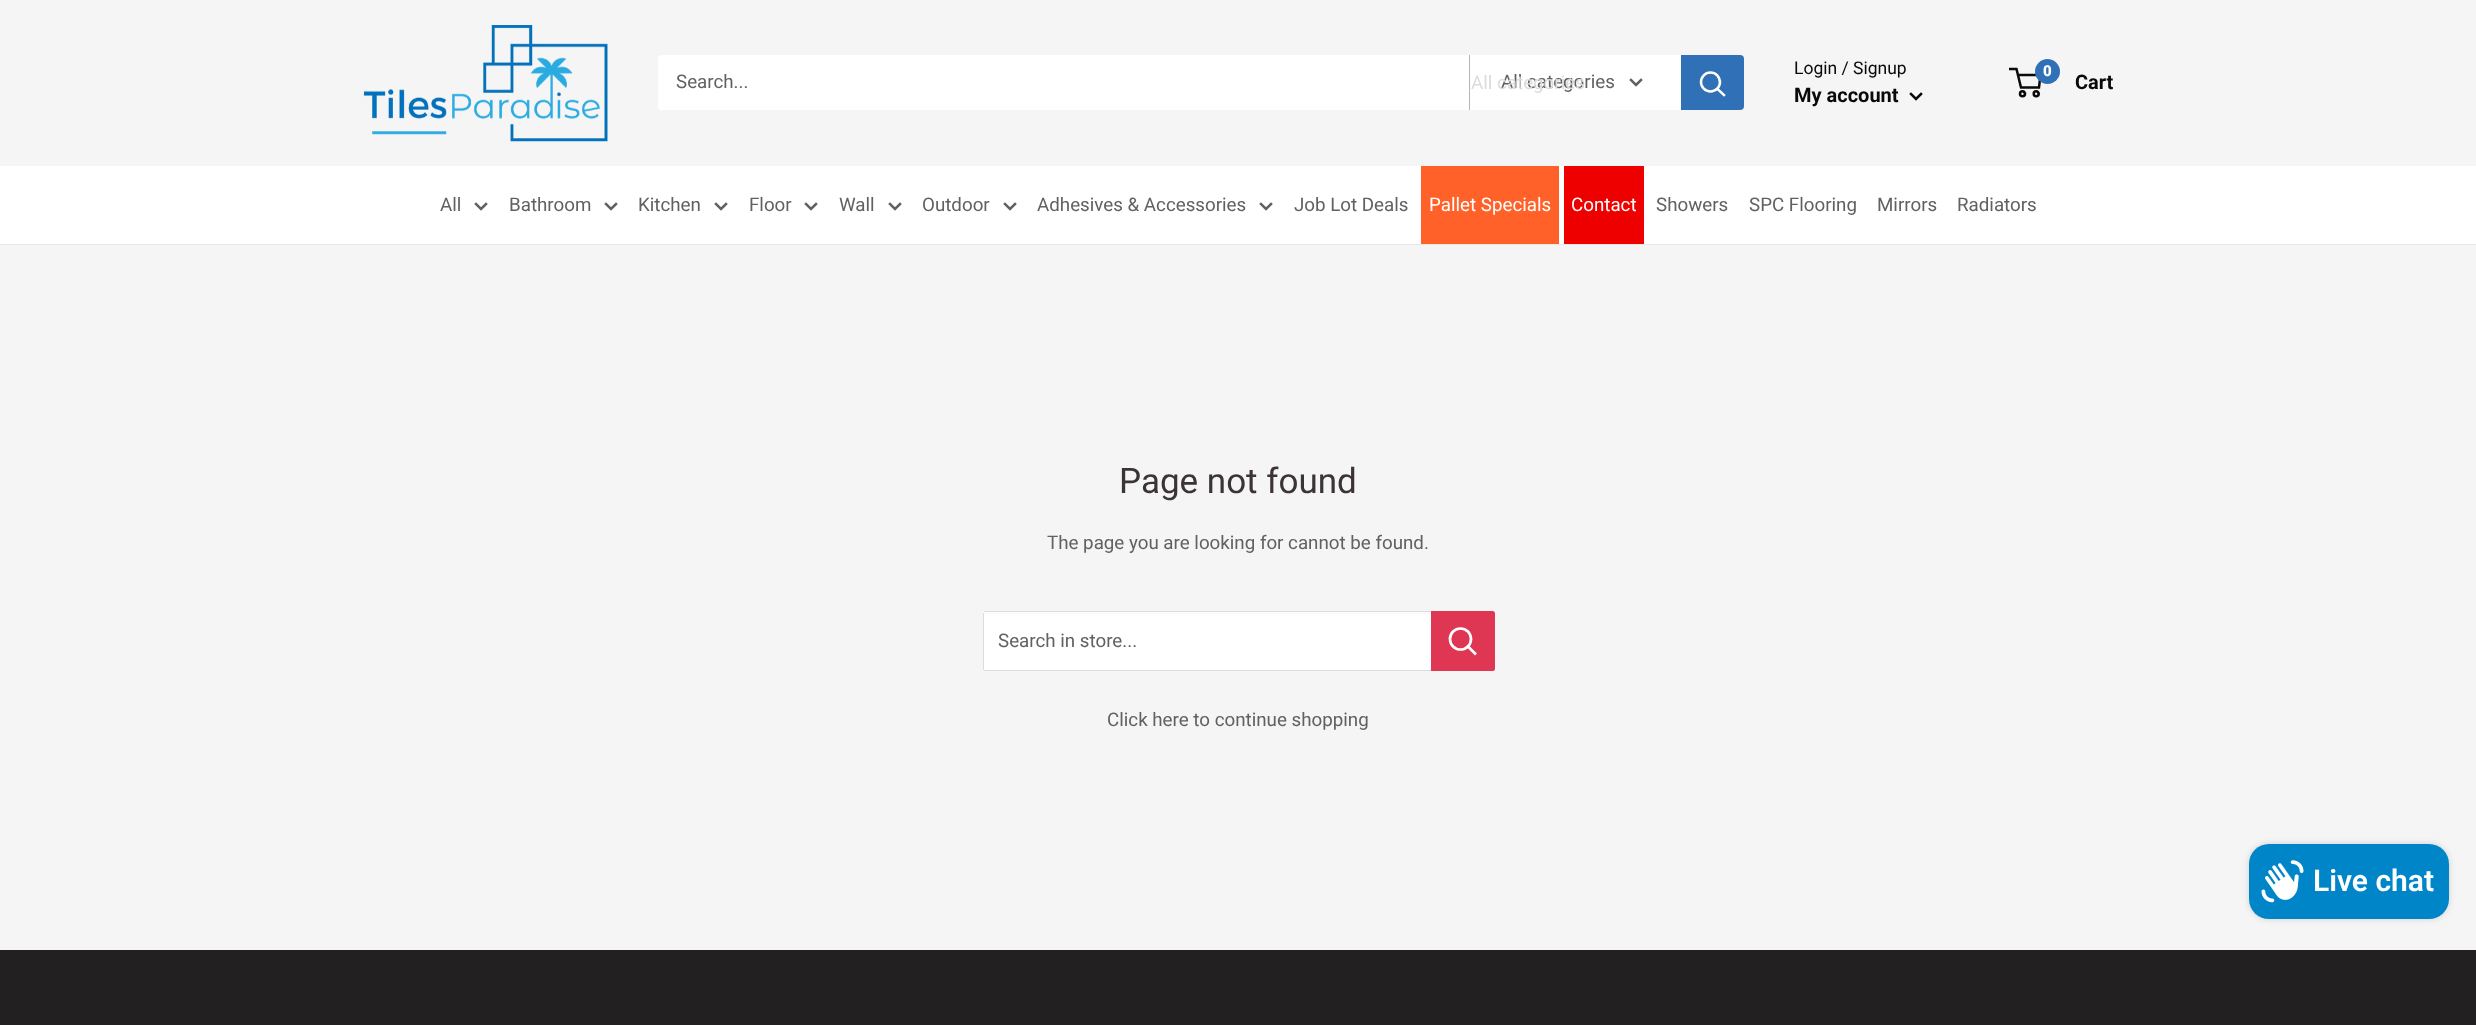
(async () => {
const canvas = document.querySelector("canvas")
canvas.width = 2476
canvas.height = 1025
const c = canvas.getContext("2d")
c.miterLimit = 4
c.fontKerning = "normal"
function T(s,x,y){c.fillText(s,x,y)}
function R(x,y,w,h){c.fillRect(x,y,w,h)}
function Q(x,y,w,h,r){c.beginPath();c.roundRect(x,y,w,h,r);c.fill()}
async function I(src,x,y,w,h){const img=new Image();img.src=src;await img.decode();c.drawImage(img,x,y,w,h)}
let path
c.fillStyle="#f5f5f5"
R(0,0,2476,1025)
await I("1.png",363,25,245,117)
c.fillStyle="#fff"
Q(658,55,1086,55,4)
c.font="18.75px Roboto"
c.fillStyle="#616161"
T("Search...",676,88)
c.fillStyle="#b6b5b5"
R(1469,55,1,55)
c.fillStyle="#616161"
T("All categories",1501,88)
path = new Path2D("M1641 80l-5 5l-5-5")
c.strokeStyle="#616161"
c.lineWidth=2.5
c.lineCap="square"
c.stroke(path)
c.fillStyle="#dcdcdc"
T("All categories",1471,89)
c.fillStyle="#3070b7"
c.beginPath()
c.roundRect(1681,55,63,55,[0,4,4,0])
c.fill()
path = new Path2D("M1724 95l-6.5-6")
c.strokeStyle="#fff"
c.stroke(path)
c.beginPath()
c.arc(1710.5,82,9.5,0,7)
c.stroke()
c.font="17.5px Roboto"
c.fillStyle="#0b0909"
T("Login / Signup",1794,74)
c.font="bold 20px Roboto"
T("My account",1794,102)
path = new Path2D("M1921 94l-5 5l-5-5")
c.strokeStyle="#0b0909"
c.stroke(path)
c.beginPath()
c.arc(2022.5,93.8,2.5,0,7)
c.stroke()
c.beginPath()
c.arc(2036.2,93.8,2.5,0,7)
c.stroke()
path = new Path2D("M2018 75h22.5l-1.5 12.5h-18l-4.5-18.5h-7.5")
c.lineCap="butt"
c.stroke(path)
c.fillStyle="#3070b7"
c.beginPath()
c.arc(2047.5,71.5,12.5,0,7)
c.fill()
c.font="900 15px Roboto"
c.fillStyle="#fff"
T("0",2043,76)
c.font="bold 20px Roboto"
c.fillStyle="#0b0909"
T("Cart",2075,89)
c.fillStyle="#fff"
R(0,166,2476,78)
c.fillStyle="#e8e8e8"
R(0,244,2476,1)
c.font="18.75px Roboto"
c.fillStyle="#616161"
T("All",440,211)
path = new Path2D("M486 204l-5 5l-5-5")
c.strokeStyle="#616161"
c.lineCap="square"
c.stroke(path)
T("Bathroom",509,211)
path = new Path2D("M616 204l-5 5l-5-5")
c.stroke(path)
T("Kitchen",638,211)
path = new Path2D("M726 204l-5 5l-5-5")
c.stroke(path)
T("Floor",749,211)
path = new Path2D("M816 204l-5 5l-5-5")
c.stroke(path)
T("Wall",839,211)
path = new Path2D("M900 204l-5 5l-5-5")
c.stroke(path)
T("Outdoor",922,211)
path = new Path2D("M1015 204l-5 5l-5-5")
c.stroke(path)
T("Adhesives & Accessories",1037,211)
path = new Path2D("M1271 204l-5 5l-5-5")
c.stroke(path)
T("Job Lot Deals",1294,211)
c.fillStyle="#ff6128"
R(1421,166,138,78)
c.fillStyle="#fff"
T("Pallet Specials",1429,211)
c.fillStyle="#e00"
R(1564,166,80,78)
c.fillStyle="#fff"
T("Contact",1571,211)
c.fillStyle="#616161"
T("Showers",1656,211)
T("SPC Flooring",1749,211)
T("Mirrors",1877,211)
T("Radiators",1957,211)
c.font="35px Roboto"
c.fillStyle="#3b3337"
T("Page not found",1119,493)
c.font="18.75px Roboto"
c.fillStyle="#616161"
T("The page you are looking for cannot be found.",1047,549)
c.fillStyle="#fff"
c.beginPath()
c.roundRect(983,611,448,60,[2.5,0,0,2.5])
c.fill()
c.fillStyle="#f9f9f9"
path = new Path2D("M985 614h446v-1h-446l-1 1v1c0-1 0-1 1-1z")
c.fill(path)
c.fillStyle="#dbdbdb"
R(984,611,447,1)
R(984,670,447,1)
R(983,613,1,57)
c.fillStyle="#616161"
T("Search in store...",998,647)
c.fillStyle="#df3653"
c.beginPath()
c.roundRect(1431,611,64,60,[0,2.5,2.5,0])
c.fill()
path = new Path2D("M1475 653.5l-7-7")
c.strokeStyle="#fff"
c.lineWidth=2.7
c.stroke(path)
c.beginPath()
c.arc(1460.5,639,10.5,0,7)
c.stroke()
c.fillStyle="#616161"
T("Click here to continue shopping",1107,726)
c.fillStyle="#00000026"
c.filter="blur(3px)"
c.beginPath()
c.roundRect(2249,844,200,75,20)
c.fill()
c.filter="none"
c.fillStyle="#0086c8"
Q(2249,844,200,75,20)
await I("2.png",2261,860,43,43)
c.font="600 30px Roboto"
c.fillStyle="#fff"
T("Live chat",2313,891)
c.fillStyle="#222021"
R(0,950,2476,75)
})()
